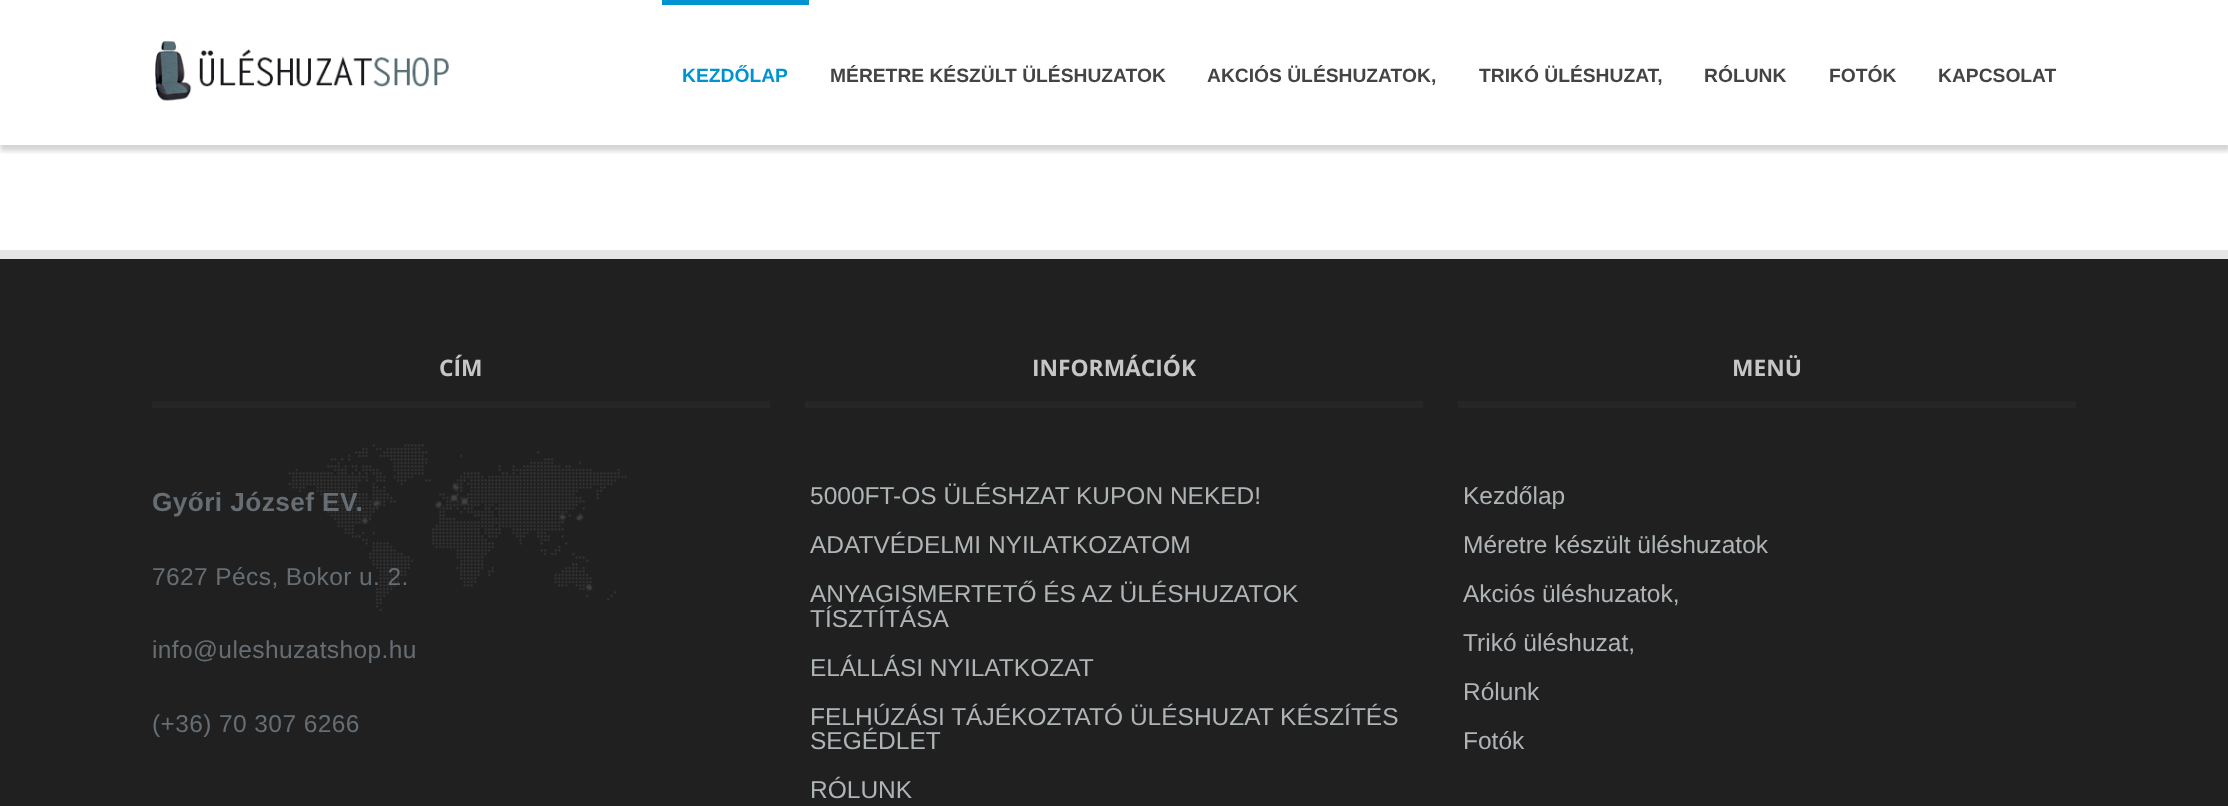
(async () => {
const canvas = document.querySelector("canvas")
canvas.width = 2228
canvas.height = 806
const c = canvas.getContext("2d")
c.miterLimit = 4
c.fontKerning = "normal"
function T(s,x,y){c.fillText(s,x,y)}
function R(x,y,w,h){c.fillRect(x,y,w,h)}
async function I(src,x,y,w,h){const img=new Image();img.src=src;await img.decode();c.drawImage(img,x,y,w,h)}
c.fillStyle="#fff"
R(0,0,2228,806)
c.save()
c.beginPath()
c.rect(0,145,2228,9)
c.clip()
c.fillStyle="#0000002b"
c.filter="blur(2.5px)"
c.beginPath()
c.rect(0,5,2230,146)
c.fill()
c.filter="none"
c.restore()
await I("1.png",155,41,294,60)
c.fillStyle="#0093d0"
R(662,0,147,5)
c.font="bold 19.25px Liberation Sans"
T("KEZDŐLAP",682,82)
c.fillStyle="#444"
T("MÉRETRE KÉSZÜLT ÜLÉSHUZATOK",830,82)
T("AKCIÓS ÜLÉSHUZATOK,",1207,82)
T("TRIKÓ ÜLÉSHUZAT,",1479,82)
T("RÓLUNK",1704,82)
T("FOTÓK",1829,82)
T("KAPCSOLAT",1938,82)
c.fillStyle="#202020"
R(0,259,2228,547)
c.fillStyle="#e5e5e5"
R(0,250,2228,9)
await I("2.png",288,444,339,167)
c.fillStyle="#252627"
R(152,401,618,7)
c.font="bold 22.75px Open Sans"
c.fillStyle="#c4c6c8"
T("CÍM",439,376)
c.letterSpacing="0.4px"
c.font="bold 26.25px Liberation Sans"
c.fillStyle="#666e74"
T("Győri József EV.",152,511)
c.font="24.5px Liberation Sans"
T("7627 Pécs, Bokor u. 2.",152,585)
T("info@uleshuzatshop.hu",152,658)
T("(+36) 70 307 6266",152,732)
c.fillStyle="#252627"
R(805,401,618,7)
c.letterSpacing="0px"
c.font="bold 22.75px Open Sans"
c.fillStyle="#c4c6c8"
T("INFORMÁCIÓK",1032,376)
c.font="24.5px Liberation Sans"
c.fillStyle="#afb4b7"
T("5000FT-OS ÜLÉSHZAT KUPON NEKED!",810,504)
T("ADATVÉDELMI NYILATKOZATOM",810,553)
T("ANYAGISMERTETŐ ÉS AZ ÜLÉSHUZATOK",810,602)
T("TÍSZTÍTÁSA",810,627)
T("ELÁLLÁSI NYILATKOZAT",810,676)
T("FELHÚZÁSI TÁJÉKOZTATÓ ÜLÉSHUZAT KÉSZÍTÉS",810,725)
T("SEGÉDLET",810,749)
T("RÓLUNK",810,798)
c.fillStyle="#252627"
R(1458,401,618,7)
c.font="bold 22.75px Open Sans"
c.fillStyle="#c4c6c8"
T("MENÜ",1732,376)
c.font="24.5px Liberation Sans"
c.fillStyle="#afb4b7"
T("Kezdőlap",1463,504)
T("Méretre készült üléshuzatok",1463,553)
T("Akciós üléshuzatok,",1463,602)
T("Trikó üléshuzat,",1463,651)
T("Rólunk",1463,700)
T("Fotók",1463,749)
})()
